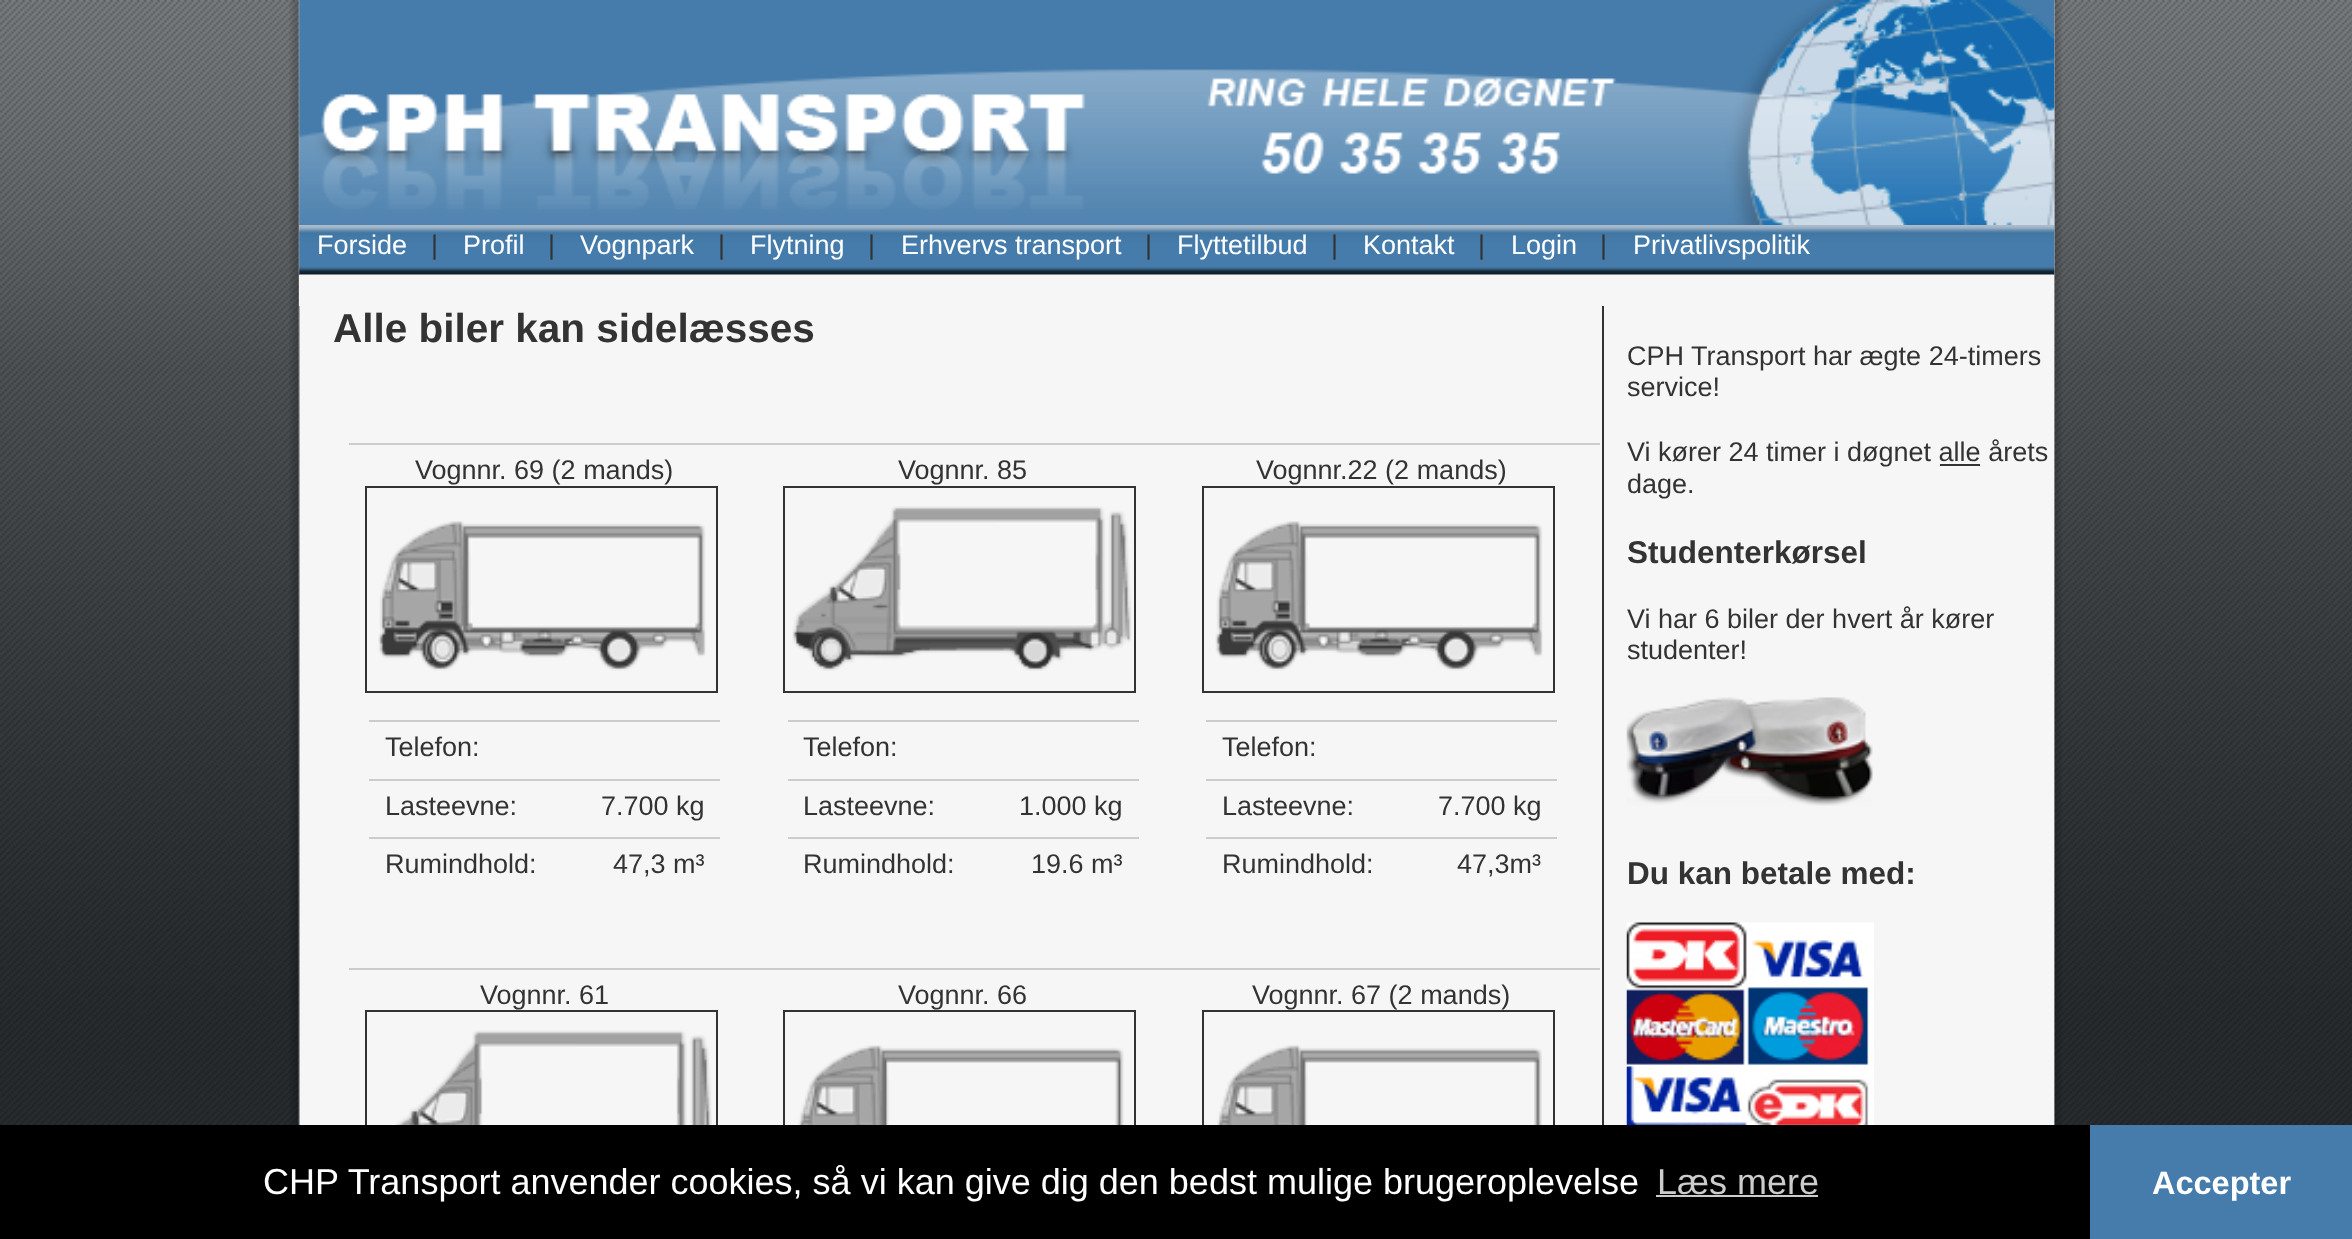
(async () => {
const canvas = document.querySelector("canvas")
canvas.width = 2352
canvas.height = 1239
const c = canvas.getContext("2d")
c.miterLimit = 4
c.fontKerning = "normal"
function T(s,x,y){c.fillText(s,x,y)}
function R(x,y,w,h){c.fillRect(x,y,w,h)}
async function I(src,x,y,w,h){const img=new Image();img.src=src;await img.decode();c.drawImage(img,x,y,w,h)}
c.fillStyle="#fff"
R(0,0,2352,1239)
await I("1.png",0,0,2352,1125)
await I("2.png",289,0,1773,1125)
await I("3.png",299,0,1756,225)
await I("4.png",299,225,1756,50)
c.font="27px Liberation Sans"
T("Forside",317,254)
c.fillStyle="#333"
T("|",431,254)
c.fillStyle="#fff"
T("Profil",463,254)
c.fillStyle="#333"
T("|",548,254)
c.fillStyle="#fff"
T("Vognpark",580,254)
c.fillStyle="#333"
T("|",718,254)
c.fillStyle="#fff"
T("Flytning",750,254)
c.fillStyle="#333"
T("|",868,254)
c.fillStyle="#fff"
T("Erhvervs transport",901,254)
c.fillStyle="#333"
T("|",1145,254)
c.fillStyle="#fff"
T("Flyttetilbud",1177,254)
c.fillStyle="#333"
T("|",1331,254)
c.fillStyle="#fff"
T("Kontakt",1363,254)
c.fillStyle="#333"
T("|",1478,254)
c.fillStyle="#fff"
T("Login",1511,254)
c.fillStyle="#333"
T("|",1600,254)
c.fillStyle="#fff"
T("Privatlivspolitik",1633,254)
c.fillStyle="#f6f6f6"
R(299,275,1755,31)
c.font="bold 40.5px Liberation Sans"
c.fillStyle="#333"
T("Alle biler kan sidelæsses",333,342)
c.fillStyle="#ccc"
R(349,443,1251,2)
c.font="27px Liberation Sans"
c.fillStyle="#333"
T("Vognnr. 69 (2 mands)",415,479)
c.strokeStyle="#333"
c.lineWidth=2
c.strokeRect(366,487,351,205)
await I("5.png",378,521,328,150)
c.fillStyle="#ccc"
R(369,720,351,2)
c.fillStyle="#333"
T("Telefon:",385,756)
c.fillStyle="#ccc"
R(369,779,351,2)
c.fillStyle="#333"
T("Lasteevne:",385,815)
T("7.700 kg",601,815)
c.fillStyle="#ccc"
R(369,837,351,2)
c.fillStyle="#333"
T("Rumindhold:",385,873)
T("47,3 m³",613,873)
T("Vognnr. 85",898,479)
c.strokeRect(784,487,351,205)
await I("6.png",792,506,340,165)
c.fillStyle="#ccc"
R(788,720,351,2)
c.fillStyle="#333"
T("Telefon:",803,756)
c.fillStyle="#ccc"
R(788,779,351,2)
c.fillStyle="#333"
T("Lasteevne:",803,815)
T("1.000 kg",1019,815)
c.fillStyle="#ccc"
R(788,837,351,2)
c.fillStyle="#333"
T("Rumindhold:",803,873)
T("19.6 m³",1031,873)
T("Vognnr.22 (2 mands)",1256,479)
c.strokeRect(1203,487,351,205)
await I("7.png",1215,521,328,150)
c.fillStyle="#ccc"
R(1206,720,351,2)
c.fillStyle="#333"
T("Telefon:",1222,756)
c.fillStyle="#ccc"
R(1206,779,351,2)
c.fillStyle="#333"
T("Lasteevne:",1222,815)
T("7.700 kg",1438,815)
c.fillStyle="#ccc"
R(1206,837,351,2)
c.fillStyle="#333"
T("Rumindhold:",1222,873)
T("47,3m³",1457,873)
c.fillStyle="#ccc"
R(349,968,1251,2)
c.fillStyle="#333"
T("Vognnr. 61",480,1004)
c.strokeRect(366,1011,351,205)
await I("8.png",395,1030,317,95)
T("Vognnr. 66",898,1004)
c.strokeRect(784,1011,351,205)
await I("9.png",798,1045,326,80)
T("Vognnr. 67 (2 mands)",1252,1004)
c.strokeRect(1203,1011,351,205)
await I("10.png",1217,1045,325,80)
c.fillStyle="#f6f6f6"
R(2053,306,1,819)
c.fillStyle="#333"
R(1602,306,2,819)
T("CPH Transport har ægte 24-timers",1627,365)
T("service!",1627,396)
T("Vi kører 24 timer i døgnet alle årets",1627,461)
R(1940,464,40,2)
T("dage.",1627,493)
c.font="bold 31.5px Liberation Sans"
T("Studenterkørsel",1627,563)
c.font="27px Liberation Sans"
T("Vi har 6 biler der hvert år kører",1627,628)
T("studenter!",1627,659)
await I("11.png",1626,697,247,109)
c.font="bold 31.5px Liberation Sans"
T("Du kan betale med:",1627,884)
await I("12.png",1626,922,248,203)
c.fillStyle="#000"
R(0,1125,2090,114)
c.font="36px Liberation Sans"
c.fillStyle="#fff"
T("CHP Transport anvender cookies, så vi kan give dig den bedst mulige brugeroplevelse",263,1194)
c.fillStyle="#ccc"
T("Læs mere",1657,1194)
R(1656,1195,162,2)
c.fillStyle="#457cab"
R(2090,1125,262,114)
c.font="bold 32.5px Liberation Sans"
c.fillStyle="#fff"
T("Accepter",2152,1194)
})()
